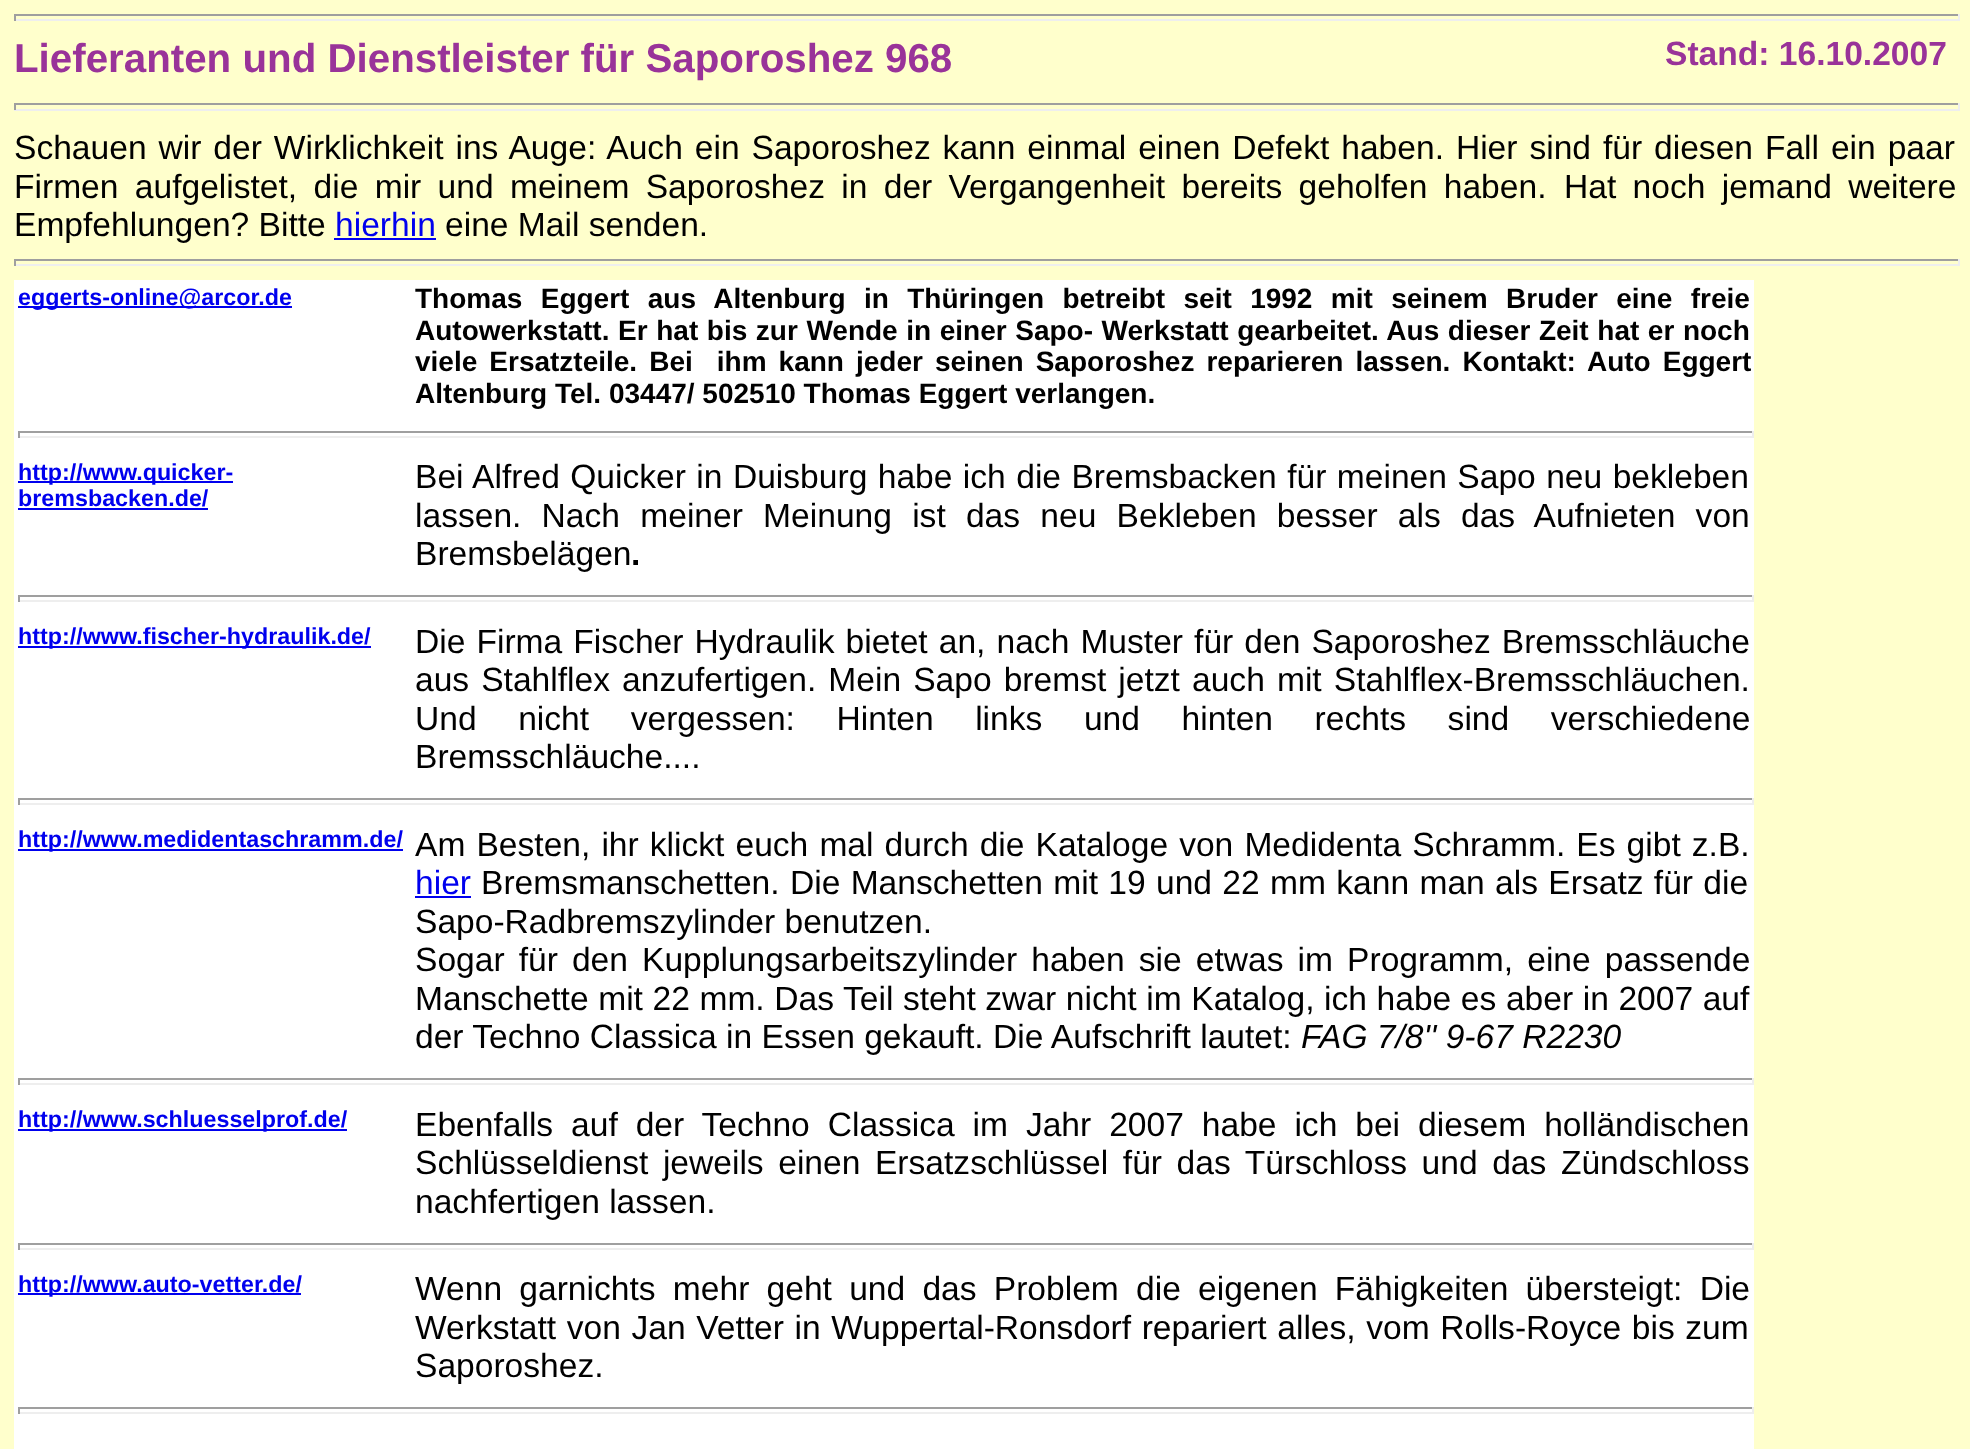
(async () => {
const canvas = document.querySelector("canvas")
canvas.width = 1970
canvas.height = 1449
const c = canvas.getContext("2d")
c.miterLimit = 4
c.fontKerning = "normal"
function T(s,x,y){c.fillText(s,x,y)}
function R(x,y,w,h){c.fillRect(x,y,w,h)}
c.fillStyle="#ffc"
R(0,0,1970,1449)
c.fillStyle="#9f9f9f"
R(14,14,1946,2)
c.fillStyle="#eee"
R(1958,14,2,7)
R(14,19,1946,2)
c.fillStyle="#9f9f9f"
R(14,14,2,7)
c.font="bold 40.3px Liberation Sans"
c.fillStyle="#939"
T("Lieferanten und Dienstleister für Saporoshez 968",14,72)
c.font="bold 33.6px Liberation Sans"
T("Stand: 16.10.2007",1665,65)
c.fillStyle="#9f9f9f"
R(14,103,1946,2)
c.fillStyle="#eee"
R(1958,103,2,7)
R(14,109,1946,2)
c.fillStyle="#9f9f9f"
R(14,103,2,7)
c.wordSpacing="2.6px"
c.font="33.6px Liberation Sans"
c.fillStyle="#000"
T("Schauen wir der Wirklichkeit ins Auge: Auch ein Saporoshez kann einmal einen Defekt haben. Hier sind für diesen Fall ein paar",14,159)
c.wordSpacing="7px"
T("Firmen aufgelistet, die mir und meinem Saporoshez in der Vergangenheit bereits geholfen haben.",14,198)
T("Hat noch jemand weitere",1564,198)
c.wordSpacing="0px"
T("Empfehlungen? Bitte",14,236)
c.fillStyle="#00e"
T("hierhin",335,236)
R(334,238,102,2)
c.fillStyle="#000"
T("eine Mail senden.",445,236)
c.fillStyle="#9f9f9f"
R(14,259,1946,2)
c.fillStyle="#eee"
R(1958,259,2,7)
R(14,264,1946,2)
c.fillStyle="#9f9f9f"
R(14,259,2,7)
c.fillStyle="#fff"
R(14,280,1740,1169)
c.fillStyle="#00e"
R(18,306,274,2)
c.font="bold 23.3px Liberation Sans"
T("eggerts-online@arcor.de",18,305)
c.wordSpacing="10.6px"
c.font="bold 28px Liberation Sans"
c.fillStyle="#000"
T("Thomas Eggert aus Altenburg in Thüringen betreibt seit 1992 mit seinem Bruder eine freie",415,308)
c.wordSpacing="0.8px"
T("Autowerkstatt. Er hat bis zur Wende in einer Sapo- Werkstatt gearbeitet. Aus dieser Zeit hat er noch",415,340)
c.wordSpacing="4.25px"
T("viele Ersatzteile. Bei  ihm kann jeder seinen Saporoshez reparieren lassen. Kontakt: Auto Eggert",415,371)
c.wordSpacing="0px"
T("Altenburg Tel. 03447/ 502510 Thomas Eggert verlangen.",415,403)
c.fillStyle="#9f9f9f"
R(18,431,1736,2)
c.fillStyle="#eee"
R(1752,431,2,7)
R(18,436,1736,2)
c.fillStyle="#9f9f9f"
R(18,431,2,7)
c.fillStyle="#00e"
R(18,481,215,2)
c.font="bold 23.3px Liberation Sans"
T("http://www.quicker-",18,480)
T("bremsbacken.de/",18,506)
R(18,508,190,2)
c.wordSpacing="1.1px"
c.font="33.6px Liberation Sans"
c.fillStyle="#000"
T("Bei Alfred Quicker in Duisburg habe ich die Bremsbacken für meinen Sapo neu bekleben",415,488)
c.wordSpacing="10.9px"
T("lassen. Nach meiner Meinung ist das neu Bekleben besser als das Aufnieten von",415,527)
c.wordSpacing="0px"
T("Bremsbelägen",415,565)
c.font="bold 33.6px Liberation Sans"
T(".",631,565)
c.fillStyle="#9f9f9f"
R(18,595,1736,2)
c.fillStyle="#eee"
R(1752,595,2,7)
R(18,600,1736,2)
c.fillStyle="#9f9f9f"
R(18,595,2,7)
c.fillStyle="#00e"
R(18,646,353,2)
c.font="bold 23.3px Liberation Sans"
T("http://www.fischer-hydraulik.de/",18,644)
c.wordSpacing="1.75px"
c.font="33.6px Liberation Sans"
c.fillStyle="#000"
T("Die Firma Fischer Hydraulik bietet an, nach Muster für den Saporoshez Bremsschläuche",415,653)
c.wordSpacing="2.75px"
T("aus Stahlflex anzufertigen. Mein Sapo bremst jetzt auch mit Stahlflex-Bremsschläuchen.",415,691)
c.wordSpacing="32.25px"
T("Und nicht vergessen: Hinten links und hinten rechts sind verschiedene",415,730)
c.wordSpacing="0px"
T("Bremsschläuche....",415,768)
c.fillStyle="#9f9f9f"
R(18,798,1736,2)
c.fillStyle="#eee"
R(1752,798,2,7)
R(18,803,1736,2)
c.fillStyle="#9f9f9f"
R(18,798,2,7)
c.fillStyle="#00e"
R(18,849,385,2)
c.font="bold 23.3px Liberation Sans"
T("http://www.medidentaschramm.de/",18,847)
c.wordSpacing="1.75px"
c.font="33.6px Liberation Sans"
c.fillStyle="#000"
T("Am Besten, ihr klickt euch mal durch die Kataloge von Medidenta Schramm. Es gibt z.B.",415,856)
c.wordSpacing="0px"
c.fillStyle="#00e"
T("hier",415,894)
R(415,896,56,2)
c.wordSpacing="1px"
c.fillStyle="#000"
T("Bremsmanschetten. Die Manschetten mit 19 und 22 mm kann man als Ersatz für die",481,894)
c.wordSpacing="0px"
T("Sapo-Radbremszylinder benutzen.",415,933)
c.wordSpacing="4.75px"
T("Sogar für den Kupplungsarbeitszylinder haben sie etwas im Programm, eine passende",415,971)
c.wordSpacing="0.25px"
T("Manschette mit 22 mm. Das Teil steht zwar nicht im Katalog, ich habe es aber in 2007 auf",415,1010)
c.wordSpacing="0px"
T("der Techno Classica in Essen gekauft. Die Aufschrift lautet:",415,1048)
c.font="italic 33.6px Liberation Sans"
T("FAG 7/8'' 9-67 R2230",1301,1048)
c.fillStyle="#9f9f9f"
R(18,1078,1736,2)
c.fillStyle="#eee"
R(1752,1078,2,7)
R(18,1083,1736,2)
c.fillStyle="#9f9f9f"
R(18,1078,2,7)
c.fillStyle="#00e"
R(18,1129,329,2)
c.font="bold 23.3px Liberation Sans"
T("http://www.schluesselprof.de/",18,1127)
c.wordSpacing="8.6px"
c.font="33.6px Liberation Sans"
c.fillStyle="#000"
T("Ebenfalls auf der Techno Classica im Jahr 2007 habe ich bei diesem holländischen",415,1136)
c.wordSpacing="5.25px"
T("Schlüsseldienst jeweils einen Ersatzschlüssel für das Türschloss und das Zündschloss",415,1174)
c.wordSpacing="0px"
T("nachfertigen lassen.",415,1213)
c.fillStyle="#9f9f9f"
R(18,1243,1736,2)
c.fillStyle="#eee"
R(1752,1243,2,7)
R(18,1248,1736,2)
c.fillStyle="#9f9f9f"
R(18,1243,2,7)
c.fillStyle="#00e"
R(18,1293,283,2)
c.font="bold 23.3px Liberation Sans"
T("http://www.auto-vetter.de/",18,1292)
c.wordSpacing="7.9px"
c.font="33.6px Liberation Sans"
c.fillStyle="#000"
T("Wenn garnichts mehr geht und das Problem die eigenen Fähigkeiten übersteigt: Die",415,1300)
c.wordSpacing="1.25px"
T("Werkstatt von Jan Vetter in Wuppertal-Ronsdorf repariert alles, vom Rolls-Royce bis zum",415,1339)
c.wordSpacing="0px"
T("Saporoshez.",415,1377)
c.fillStyle="#9f9f9f"
R(18,1407,1736,2)
c.fillStyle="#eee"
R(1752,1407,2,7)
R(18,1412,1736,2)
c.fillStyle="#9f9f9f"
R(18,1407,2,7)
})()
